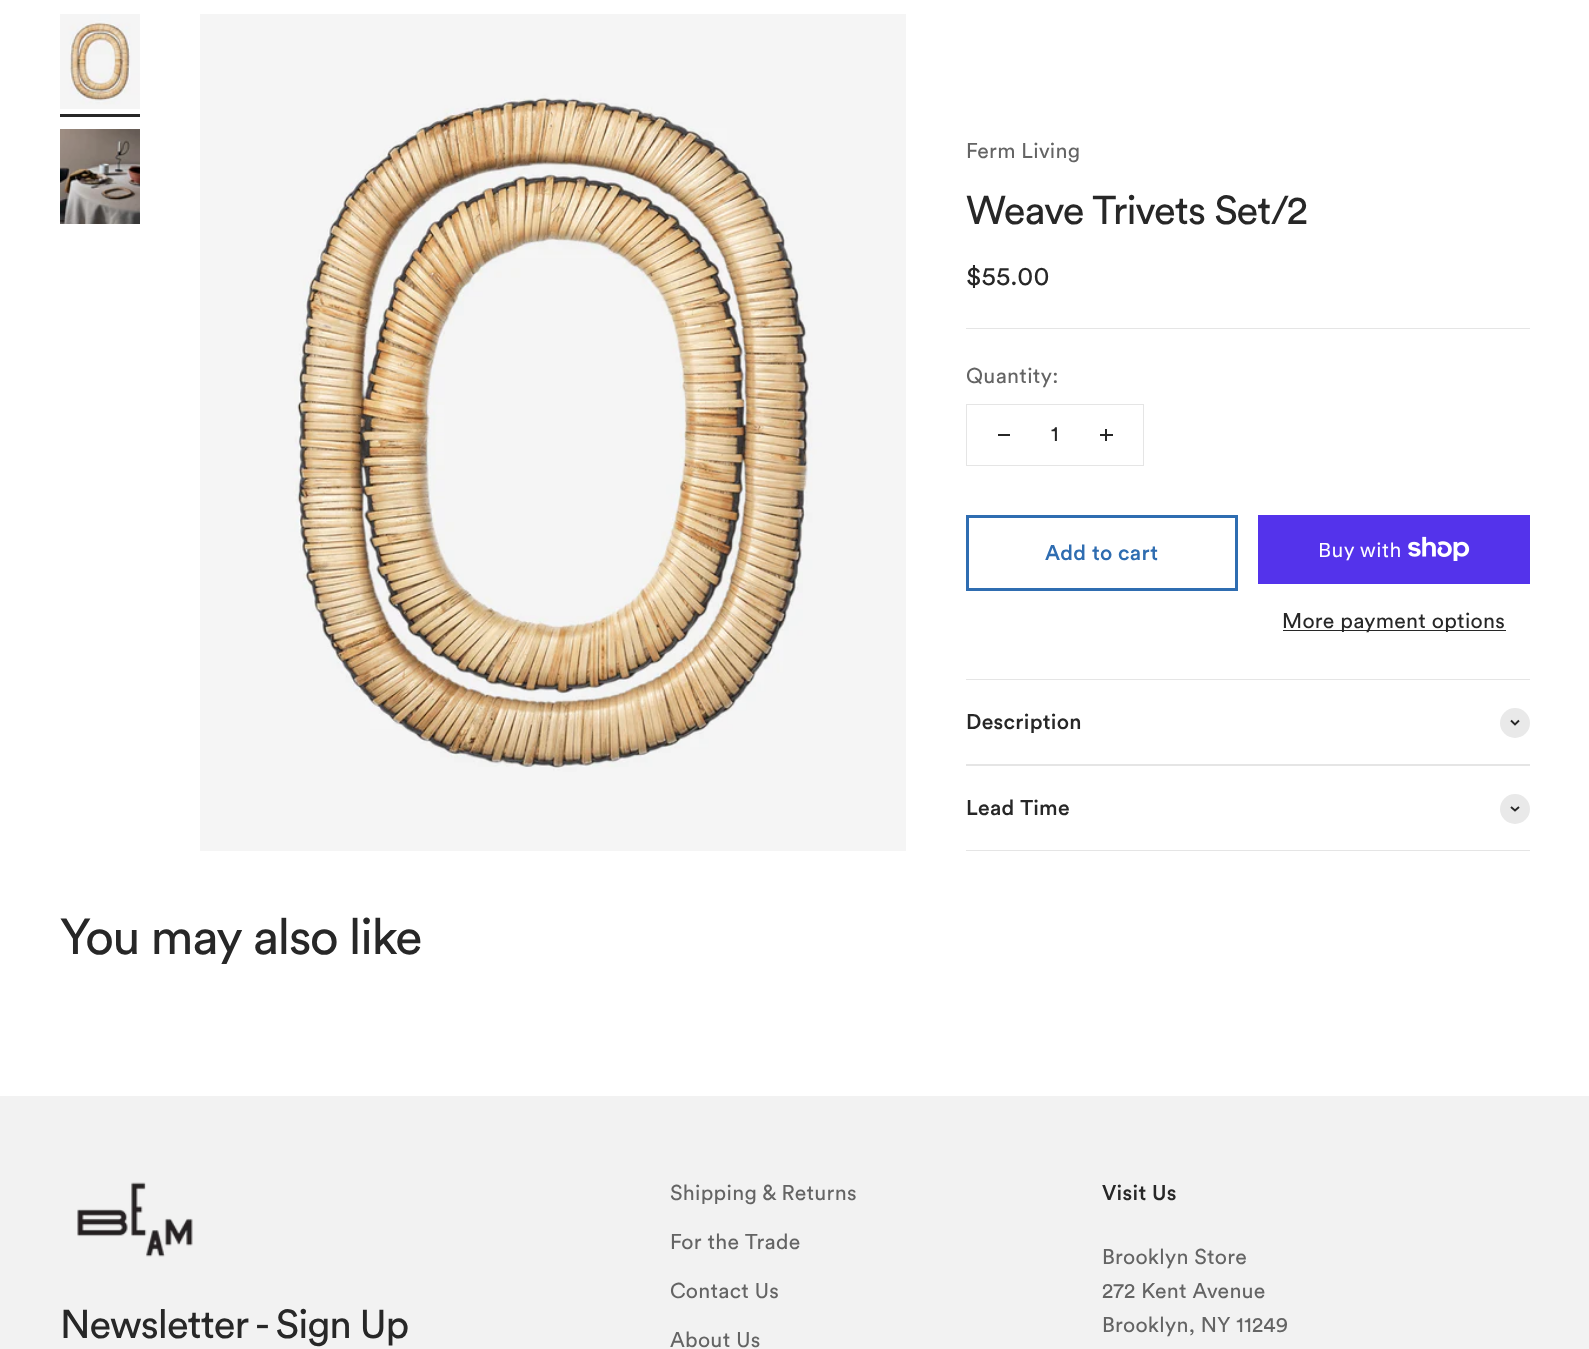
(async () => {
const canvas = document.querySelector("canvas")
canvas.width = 1589
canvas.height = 1349
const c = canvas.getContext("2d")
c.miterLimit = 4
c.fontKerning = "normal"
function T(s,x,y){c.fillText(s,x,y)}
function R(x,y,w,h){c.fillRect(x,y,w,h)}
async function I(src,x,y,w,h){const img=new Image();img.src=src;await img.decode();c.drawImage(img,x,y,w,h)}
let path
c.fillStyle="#fff"
R(0,0,1589,1349)
await I("1.png",60,14,80,95)
c.fillStyle="#272727"
R(60,114,80,3)
await I("2.png",60,129,80,95)
await I("3.png",200,14,706,837)
c.letterSpacing="0.3px"
c.font="21.25px Circular"
c.fillStyle="#646464"
T("Ferm Living",966,158)
c.letterSpacing="-1px"
c.font="40px Circular"
c.fillStyle="#272727"
T("Weave Trivets Set/2",966,224)
c.letterSpacing="0.3px"
c.font="26px Circular"
T("$55.00",966,285)
c.fillStyle="#e5e5e5"
R(966,328,564,1)
c.font="21.25px Circular"
c.fillStyle="#646464"
T("Quantity:",966,383)
c.strokeStyle="#e5e5e5"
c.strokeRect(966.5,404.5,177,61)
c.fillStyle="#272727"
R(998,434,12,2)
c.letterSpacing="0px"
T("1",1051,441)
R(1105,429,2,12)
R(1100,434,13,2)
c.strokeStyle="#2f6db1"
c.lineWidth=3
c.strokeRect(967.5,516.5,269,73)
c.letterSpacing="0.3px"
c.font="500 21.25px Circular"
c.fillStyle="#2f6db1"
T("Add to cart",1045,560)
c.fillStyle="#5433eb"
R(1258,515,272,69)
c.font="20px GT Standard"
c.fillStyle="#fff"
T("Buy with",1318,557)
await I("4.png",1408,536,62,25)
c.fillStyle="#272727"
R(1283,630,223,1)
c.font="21.25px Circular"
T("More payment options",1282,628)
c.fillStyle="#e5e5e5"
R(966,679,564,1)
R(966,764,564,2)
c.font="500 21.25px Circular"
c.fillStyle="#272727"
T("Description",966,729)
c.fillStyle="#e9e9e9"
c.beginPath()
c.arc(1515,723,15,0,7)
c.fill()
path = new Path2D("M1511 720.5l4 4l4-4")
c.strokeStyle="#272727"
c.lineWidth=1.9
c.stroke(path)
c.fillStyle="#e5e5e5"
R(966,850,564,1)
c.fillStyle="#272727"
T("Lead Time",966,815)
c.fillStyle="#e9e9e9"
c.beginPath()
c.arc(1515,809,15,0,7)
c.fill()
path = new Path2D("M1511 807l4 3.5l4-3.5")
c.stroke(path)
c.letterSpacing="-1.25px"
c.font="50px Circular"
c.fillStyle="#272727"
T("You may also like",60,954)
c.fillStyle="#f2f2f2"
R(0,1096,1589,253)
await I("5.png",77,1182,116,75)
c.letterSpacing="-1px"
c.font="40px Circular"
c.fillStyle="#272727"
T("Newsletter - Sign Up",60,1338)
c.letterSpacing="0.3px"
c.font="21.25px Circular"
c.fillStyle="#646464"
T("Shipping & Returns",670,1200)
T("For the Trade",670,1249)
T("Contact Us",670,1298)
T("About Us",670,1347)
c.font="500 21.25px Circular"
c.fillStyle="#272727"
T("Visit Us",1102,1200)
c.font="21.25px Circular"
c.fillStyle="#646464"
T("Brooklyn Store",1102,1264)
T("272 Kent Avenue",1102,1298)
T("Brooklyn, NY 11249",1102,1332)
})()
